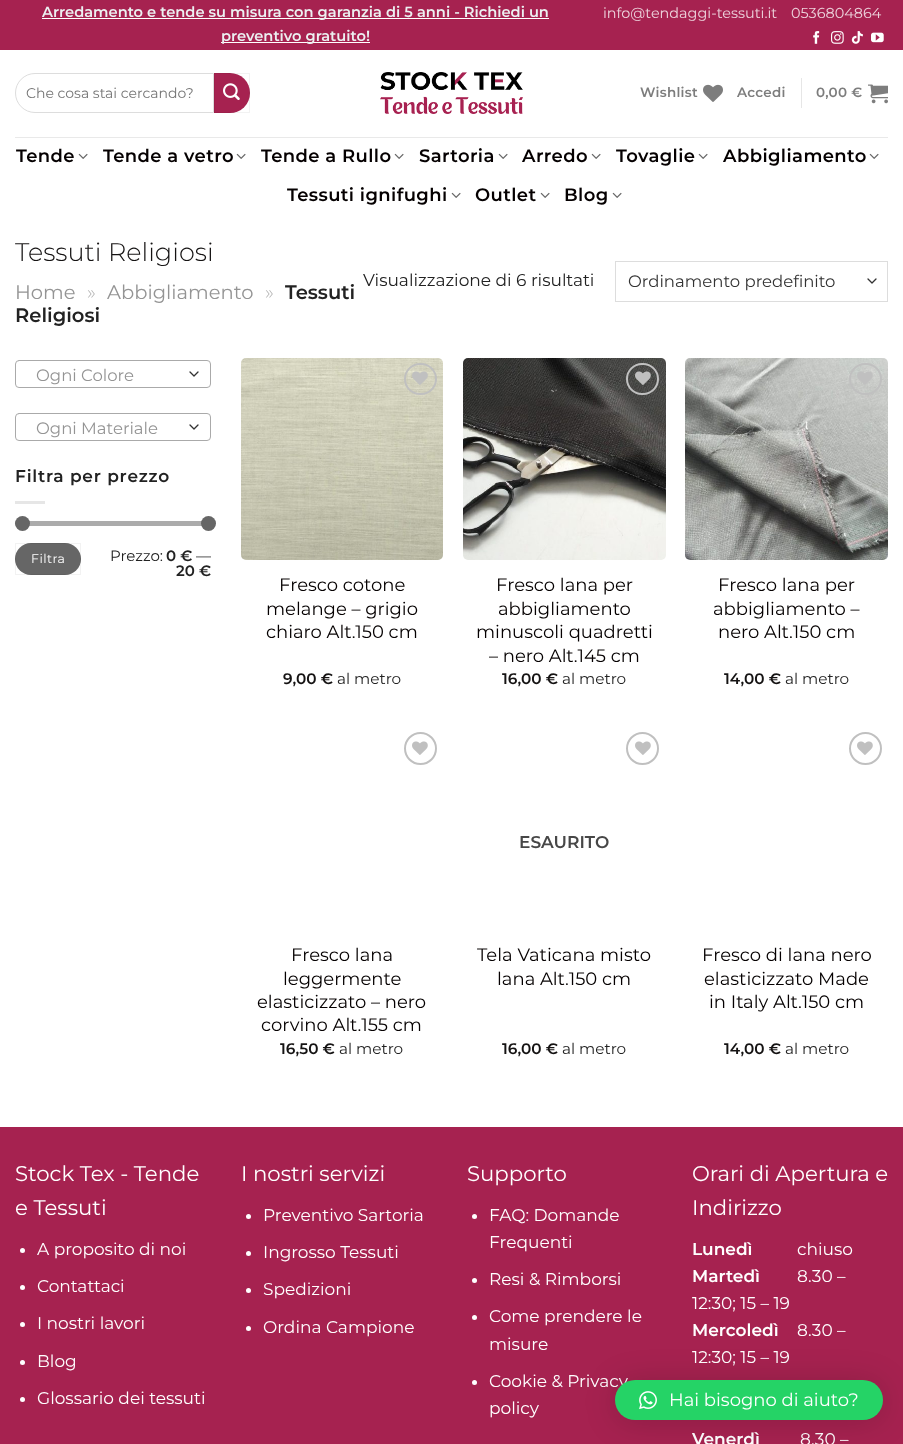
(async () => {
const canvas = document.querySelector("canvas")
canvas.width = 903
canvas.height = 1444
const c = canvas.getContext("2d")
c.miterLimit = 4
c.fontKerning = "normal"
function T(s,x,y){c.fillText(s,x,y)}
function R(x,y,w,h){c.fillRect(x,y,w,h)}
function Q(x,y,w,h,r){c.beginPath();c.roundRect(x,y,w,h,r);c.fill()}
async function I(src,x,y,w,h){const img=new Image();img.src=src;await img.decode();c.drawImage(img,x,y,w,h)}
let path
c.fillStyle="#fff"
R(0,0,903,1444)
c.fillStyle="#a62250"
R(0,0,903,50)
c.fillStyle="#fff"
R(42,18,507,1)
c.font="600 14.65px Montserrat"
c.fillStyle="#ecf0f1"
T("Arredamento e tende su misura con garanzia di 5 anni - Richiedi un",42,17)
c.fillStyle="#fff"
R(221,42,149,1)
c.fillStyle="#ecf0f1"
T("preventivo gratuito!",221,41)
c.font="14.4px Montserrat"
c.fillStyle="#edd3dc"
T("info@tendaggi-tessuti.it",603,18)
T("0536804864",791,18)
await I("1.png",813,31,7,13)
await I("2.png",831,31,13,13)
await I("3.png",851,31,12,13)
await I("4.png",871,32,13,11)
c.beginPath()
c.roundRect(15.5,73.5,198,39,[19.5,0,0,19.5])
c.strokeStyle="#ddd"
c.stroke()
c.font="14px Montserrat"
c.fillStyle="#757575"
T("Che cosa stai cercando?",26,98)
c.fillStyle="#a62250"
c.beginPath()
c.roundRect(214,73,36,40,[0,20,20,0])
c.fill()
c.strokeStyle="#0000000d"
c.strokeRect(214.5,73.5,35,39)
await I("5.png",223,83,17,17)
await I("6.png",380,72,143,42)
c.letterSpacing="0.25px"
c.font="600 13.5px Montserrat"
c.fillStyle="#7d7d7d"
T("Wishlist",640,97)
await I("7.png",703,84,20,18)
T("Accedi",737,97)
c.fillStyle="#e6e6e6"
R(801,78,1,30)
c.fillStyle="#7d7d7d"
T("0,00 €",816,97)
await I("8.png",868,84,20,20)
c.fillStyle="#e9e9e9"
R(15,137,873,1)
c.letterSpacing="0.4px"
c.font="600 18px Montserrat"
c.fillStyle="#050001"
T("Tende",16,162)
await I("9.png",78,153,10,6)
T("Tende a vetro",103,162)
await I("9.png",236,153,10,6)
T("Tende a Rullo",261,162)
await I("9.png",394,153,10,6)
T("Sartoria",419,162)
await I("9.png",498,153,10,6)
T("Arredo",522,162)
await I("9.png",591,153,10,6)
T("Tovaglie",616,162)
await I("9.png",698,153,10,6)
T("Abbigliamento",723,162)
await I("9.png",869,153,10,6)
T("Tessuti ignifughi",287,201)
await I("9.png",451,192,10,6)
T("Outlet",475,201)
await I("9.png",540,192,10,6)
T("Blog",564,201)
await I("9.png",612,192,10,6)
c.letterSpacing="0px"
c.font="300 25.5px Montserrat"
c.fillStyle="#151313"
T("Tessuti Religiosi",15,261)
c.font="19.5px Montserrat"
c.fillStyle="#949494"
T("Home",15,299)
c.font="300 19.5px Montserrat"
c.fillStyle="#b2b2b2"
T("»",87,299)
c.font="19.5px Montserrat"
c.fillStyle="#949494"
T("Abbigliamento",107,299)
c.font="300 19.5px Montserrat"
c.fillStyle="#b2b2b2"
T("»",265,299)
c.font="600 19.5px Montserrat"
c.fillStyle="#222"
T("Tessuti",285,299)
T("Religiosi",15,322)
c.font="17px Montserrat"
T("Visualizzazione di 6 risultati",363,286)
path = new Path2D("M868 279l4 4l4-4")
c.strokeStyle="#333"
c.lineWidth=1.3
c.lineCap="round"
c.lineJoin="round"
c.stroke(path)
c.strokeStyle="#ddd"
c.lineWidth=1
c.lineJoin="miter"
c.strokeRect(615.5,261.5,272,40)
c.font="16.5px Montserrat"
c.fillStyle="#333"
T("Ordinamento predefinito",628,287)
path = new Path2D("M190 372l4 4l4-4")
c.strokeStyle="#333"
c.lineWidth=1.3
c.lineJoin="round"
c.stroke(path)
c.beginPath()
c.roundRect(15.5,360.5,195,27,3.5)
c.strokeStyle="#aaa"
c.lineWidth=1
c.lineJoin="miter"
c.stroke()
c.fillStyle="#949494"
T("Ogni Colore",36,381)
path = new Path2D("M190 425l4 4l4-4")
c.strokeStyle="#333"
c.lineWidth=1.3
c.lineJoin="round"
c.stroke(path)
c.beginPath()
c.roundRect(15.5,413.5,195,27,3.5)
c.strokeStyle="#aaa"
c.lineWidth=1
c.lineJoin="miter"
c.stroke()
T("Ogni Materiale",36,434)
c.letterSpacing="0.8px"
c.font="600 17px Montserrat"
c.fillStyle="#222"
T("Filtra per prezzo",15,482)
c.fillStyle="#e6e6e6"
R(15,501,30,3)
c.fillStyle="#f1f1f1"
Q(15,521,196,5,2.5)
c.fillStyle="#66666680"
Q(15,521,196,5,2.5)
c.fillStyle="#666"
c.beginPath()
c.arc(22.5,523.5,7.5,0,7)
c.fill()
c.beginPath()
c.arc(208.5,523.5,7.5,0,7)
c.fill()
Q(15,543,66,32,16)
c.strokeStyle="#0000000d"
c.strokeRect(15.5,543.5,65,31)
c.letterSpacing="0.5px"
c.font="12.5px Montserrat"
c.fillStyle="#fff"
T("Filtra",31,563)
c.letterSpacing="0px"
c.font="15px Montserrat"
c.fillStyle="#222"
T("Prezzo:",110,561)
c.font="600 15px Montserrat"
T("0 €",166,561)
c.font="15px Montserrat"
T("—",196,561)
c.font="600 15px Montserrat"
T("20 €",176,576)
await I("10.png",241,358,202,202)
c.beginPath()
c.roundRect(405,364,31,30,15)
c.strokeStyle="#c0c0c0"
c.lineWidth=2
c.stroke()
await I("11.png",412,371,16,14)
c.font="18px Montserrat"
c.fillStyle="#050001"
T("Fresco cotone",279,591)
T("melange – grigio",266,615)
T("chiaro Alt.150 cm",266,638)
c.font="600 15.25px Montserrat"
c.fillStyle="#151313"
T("9,00 €",283,684)
c.font="15.25px Montserrat"
c.fillStyle="#222"
T("al metro",337,684)
await I("12.png",463,358,203,202)
c.beginPath()
c.roundRect(627,364,31,30,15)
c.stroke()
await I("13.png",635,371,16,14)
c.font="18px Montserrat"
c.fillStyle="#050001"
T("Fresco lana per",496,591)
T("abbigliamento",498,615)
T("minuscoli quadretti",476,638)
T("– nero Alt.145 cm",489,662)
c.font="600 15.25px Montserrat"
c.fillStyle="#151313"
T("16,00 €",502,684)
c.font="15.25px Montserrat"
c.fillStyle="#222"
T("al metro",562,684)
await I("14.png",685,358,203,202)
c.beginPath()
c.roundRect(850,364,31,30,15)
c.stroke()
await I("15.png",857,371,16,14)
c.font="18px Montserrat"
c.fillStyle="#050001"
T("Fresco lana per",718,591)
T("abbigliamento –",713,615)
T("nero Alt.150 cm",718,638)
c.font="600 15.25px Montserrat"
c.fillStyle="#151313"
T("14,00 €",724,684)
c.font="15.25px Montserrat"
c.fillStyle="#222"
T("al metro",785,684)
c.beginPath()
c.arc(420.5,748.5,15.5,0,7)
c.stroke()
await I("16.png",412,741,16,14)
c.font="18px Montserrat"
c.fillStyle="#050001"
T("Fresco lana",291,961)
T("leggermente",283,985)
T("elasticizzato – nero",257,1008)
T("corvino Alt.155 cm",261,1031)
c.font="600 15.25px Montserrat"
c.fillStyle="#151313"
T("16,50 €",280,1054)
c.font="15.25px Montserrat"
c.fillStyle="#222"
T("al metro",339,1054)
c.beginPath()
c.arc(642.5,748.5,15.5,0,7)
c.stroke()
await I("16.png",635,741,16,14)
c.font="600 17px Montserrat"
c.fillStyle="#474747"
T("ESAURITO",519,848)
c.font="18px Montserrat"
c.fillStyle="#050001"
T("Tela Vaticana misto",477,961)
T("lana Alt.150 cm",497,985)
c.font="600 15.25px Montserrat"
c.fillStyle="#151313"
T("16,00 €",502,1054)
c.font="15.25px Montserrat"
c.fillStyle="#222"
T("al metro",562,1054)
c.beginPath()
c.arc(865.5,748.5,15.5,0,7)
c.stroke()
await I("16.png",857,741,16,14)
c.font="18px Montserrat"
c.fillStyle="#050001"
T("Fresco di lana nero",702,961)
T("elasticizzato Made",704,985)
T("in Italy Alt.150 cm",709,1008)
c.font="600 15.25px Montserrat"
c.fillStyle="#151313"
T("14,00 €",724,1054)
c.font="15.25px Montserrat"
c.fillStyle="#222"
T("al metro",785,1054)
c.fillStyle="#a62250"
R(0,1127,903,317)
c.font="21.25px Montserrat"
c.fillStyle="#fff"
T("Stock Tex - Tende",15,1181)
T("e Tessuti",15,1215)
c.beginPath()
c.arc(22.5,1250.5,2.5,0,7)
c.fill()
c.font="17px Montserrat"
T("A proposito di noi",37,1255)
c.beginPath()
c.arc(22.5,1287.5,2.5,0,7)
c.fill()
T("Contattaci",37,1292)
c.beginPath()
c.arc(22.5,1324.5,2.5,0,7)
c.fill()
T("I nostri lavori",37,1329)
c.beginPath()
c.arc(22.5,1362.5,2.5,0,7)
c.fill()
T("Blog",37,1367)
c.beginPath()
c.arc(22.5,1399.5,2.5,0,7)
c.fill()
T("Glossario dei tessuti",37,1404)
c.font="21.25px Montserrat"
T("I nostri servizi",241,1181)
c.beginPath()
c.arc(248.5,1216.5,2.5,0,7)
c.fill()
c.font="17px Montserrat"
T("Preventivo Sartoria",263,1221)
c.beginPath()
c.arc(248.5,1253.5,2.5,0,7)
c.fill()
T("Ingrosso Tessuti",263,1258)
c.beginPath()
c.arc(248.5,1290.5,2.5,0,7)
c.fill()
T("Spedizioni",263,1295)
c.beginPath()
c.arc(248.5,1328.5,2.5,0,7)
c.fill()
T("Ordina Campione",263,1333)
c.font="21.25px Montserrat"
T("Supporto",467,1181)
c.beginPath()
c.arc(474.5,1216.5,2.5,0,7)
c.fill()
c.font="17px Montserrat"
T("FAQ: Domande",489,1221)
T("Frequenti",489,1248)
c.beginPath()
c.arc(474.5,1280.5,2.5,0,7)
c.fill()
T("Resi & Rimborsi",489,1285)
c.beginPath()
c.arc(474.5,1317.5,2.5,0,7)
c.fill()
T("Come prendere le",489,1322)
T("misure",489,1350)
c.beginPath()
c.arc(474.5,1382.5,2.5,0,7)
c.fill()
T("Cookie & Privacy",489,1387)
T("policy",489,1414)
c.font="21.25px Montserrat"
T("Orari di Apertura e",692,1181)
T("Indirizzo",692,1215)
c.font="600 17px Montserrat"
T("Lunedì",692,1255)
c.font="17px Montserrat"
T("chiuso",797,1255)
c.font="600 17px Montserrat"
T("Martedì",692,1282)
c.font="17px Montserrat"
T("8.30 –",797,1282)
T("12:30; 15 – 19",692,1309)
c.font="600 17px Montserrat"
T("Mercoledì",692,1336)
c.font="17px Montserrat"
T("8.30 –",797,1336)
T("12:30; 15 – 19",692,1363)
c.font="600 17px Montserrat"
T("Venerdì",692,1445)
c.font="17px Montserrat"
T("8.30 –",800,1445)
c.fillStyle="#00000029"
c.filter="blur(16px)"
c.beginPath()
c.roundRect(615,1382,268,40,20)
c.fill()
c.filter="none"
c.fillStyle="#25d366"
Q(615,1380,268,40,20)
await I("17.png",639,1391,18,19)
c.font="18px Montserrat"
c.fillStyle="#fff"
T("Hai bisogno di aiuto?",669,1406)
})()
